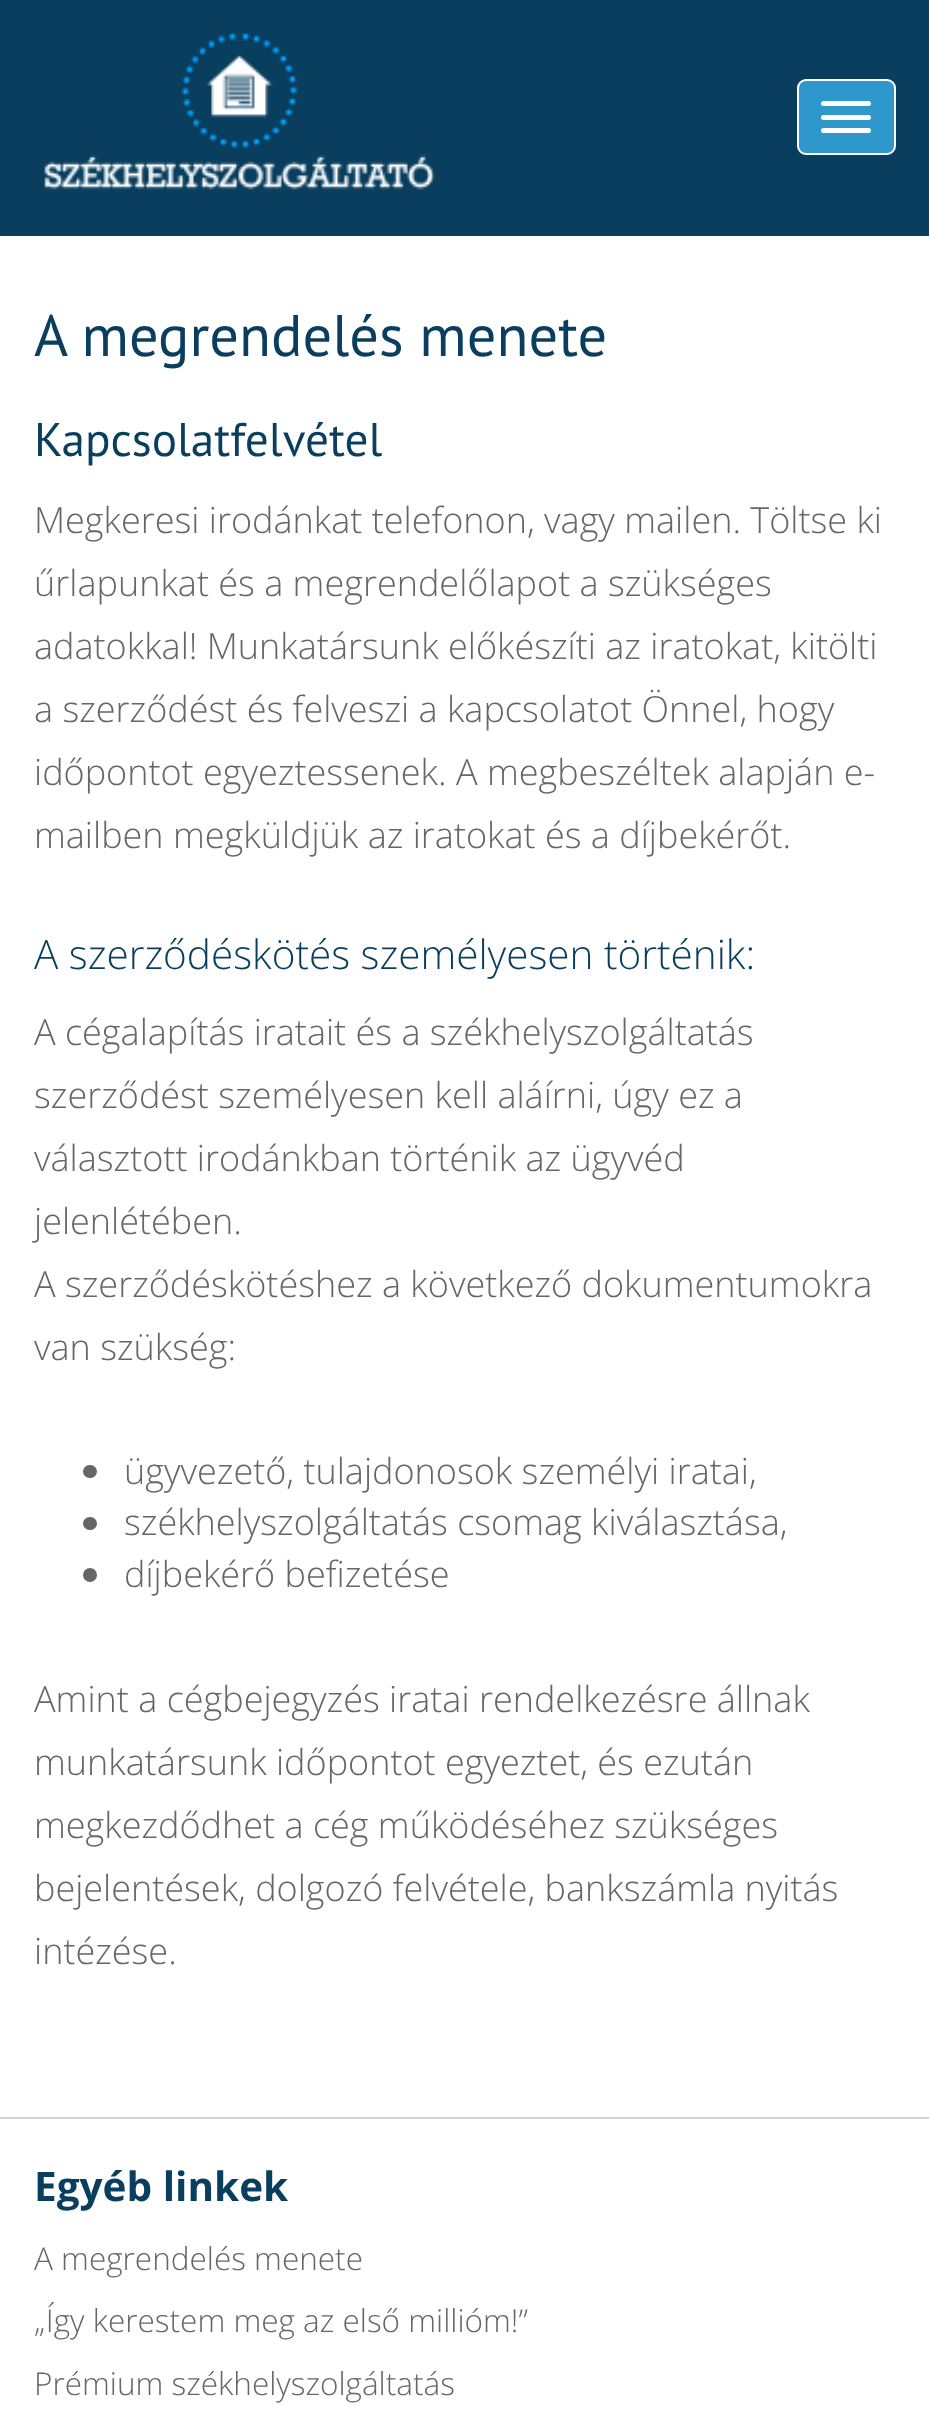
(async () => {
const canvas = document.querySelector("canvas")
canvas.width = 929
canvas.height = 2434
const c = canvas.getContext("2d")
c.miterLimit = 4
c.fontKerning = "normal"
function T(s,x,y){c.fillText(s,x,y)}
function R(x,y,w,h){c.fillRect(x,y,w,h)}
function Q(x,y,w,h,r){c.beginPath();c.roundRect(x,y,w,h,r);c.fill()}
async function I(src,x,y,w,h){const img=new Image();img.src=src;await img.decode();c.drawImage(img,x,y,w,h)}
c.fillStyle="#fff"
R(0,0,929,2434)
c.fillStyle="#093e5e"
R(0,0,929,236)
await I("1.png",44,33,391,157)
c.fillStyle="#2e98cc"
c.beginPath()
c.roundRect(798,80,97,74,8)
c.fill()
c.strokeStyle="#fff"
c.lineWidth=2
c.stroke()
c.fillStyle="#fff"
Q(821,101,50,5,2.5)
Q(821,115,50,5,2.5)
Q(821,128,50,5,2.5)
c.font="58.5px PT Sans"
c.fillStyle="#093e5e"
T("A megrendelés menete",34,356)
c.font="47.25px PT Sans"
T("Kapcsolatfelvétel",34,456)
c.font="300 36px Open Sans"
c.fillStyle="#666"
T("Megkeresi irodánkat telefonon, vagy mailen. Töltse ki",34,533)
T("űrlapunkat és a megrendelőlapot a szükséges",34,596)
T("adatokkal! Munkatársunk előkészíti az iratokat, kitölti",34,659)
T("a szerződést és felveszi a kapcsolatot Önnel, hogy",34,722)
T("időpontot egyeztessenek. A megbeszéltek alapján e-",34,785)
T("mailben megküldjük az iratokat és a díjbekérőt.",34,848)
c.font="300 40.5px Open Sans"
c.fillStyle="#093e5e"
T("A szerződéskötés személyesen történik:",34,969)
c.font="300 36px Open Sans"
c.fillStyle="#666"
T("A cégalapítás iratait és a székhelyszolgáltatás",34,1045)
T("szerződést személyesen kell aláírni, úgy ez a",34,1108)
T("választott irodánkban történik az ügyvéd",34,1171)
T("jelenlétében.",34,1234)
T("A szerződéskötéshez a következő dokumentumokra",34,1297)
T("van szükség:",34,1360)
Q(83,1465,14,13,6.5)
T("ügyvezető, tulajdonosok személyi iratai,",124,1484)
Q(83,1517,14,13,6.5)
T("székhelyszolgáltatás csomag kiválasztása,",124,1535)
c.beginPath()
c.arc(90,1575,7,0,7)
c.fill()
T("díjbekérő befizetése",124,1587)
T("Amint a cégbejegyzés iratai rendelkezésre állnak",34,1712)
T("munkatársunk időpontot egyeztet, és ezután",34,1775)
T("megkezdődhet a cég működéséhez szükséges",34,1838)
T("bejelentések, dolgozó felvétele, bankszámla nyitás",34,1901)
T("intézése.",34,1964)
c.fillStyle="#d3d3d3"
R(0,2117,929,2)
c.font="bold 40.5px Open Sans"
c.fillStyle="#093e5e"
T("Egyéb linkek",34,2201)
c.font="300 31.5px Open Sans"
c.fillStyle="#666"
T("A megrendelés menete",34,2270)
T("„Így kerestem meg az első millióm!”",34,2332)
T("Prémium székhelyszolgáltatás",34,2395)
})()
